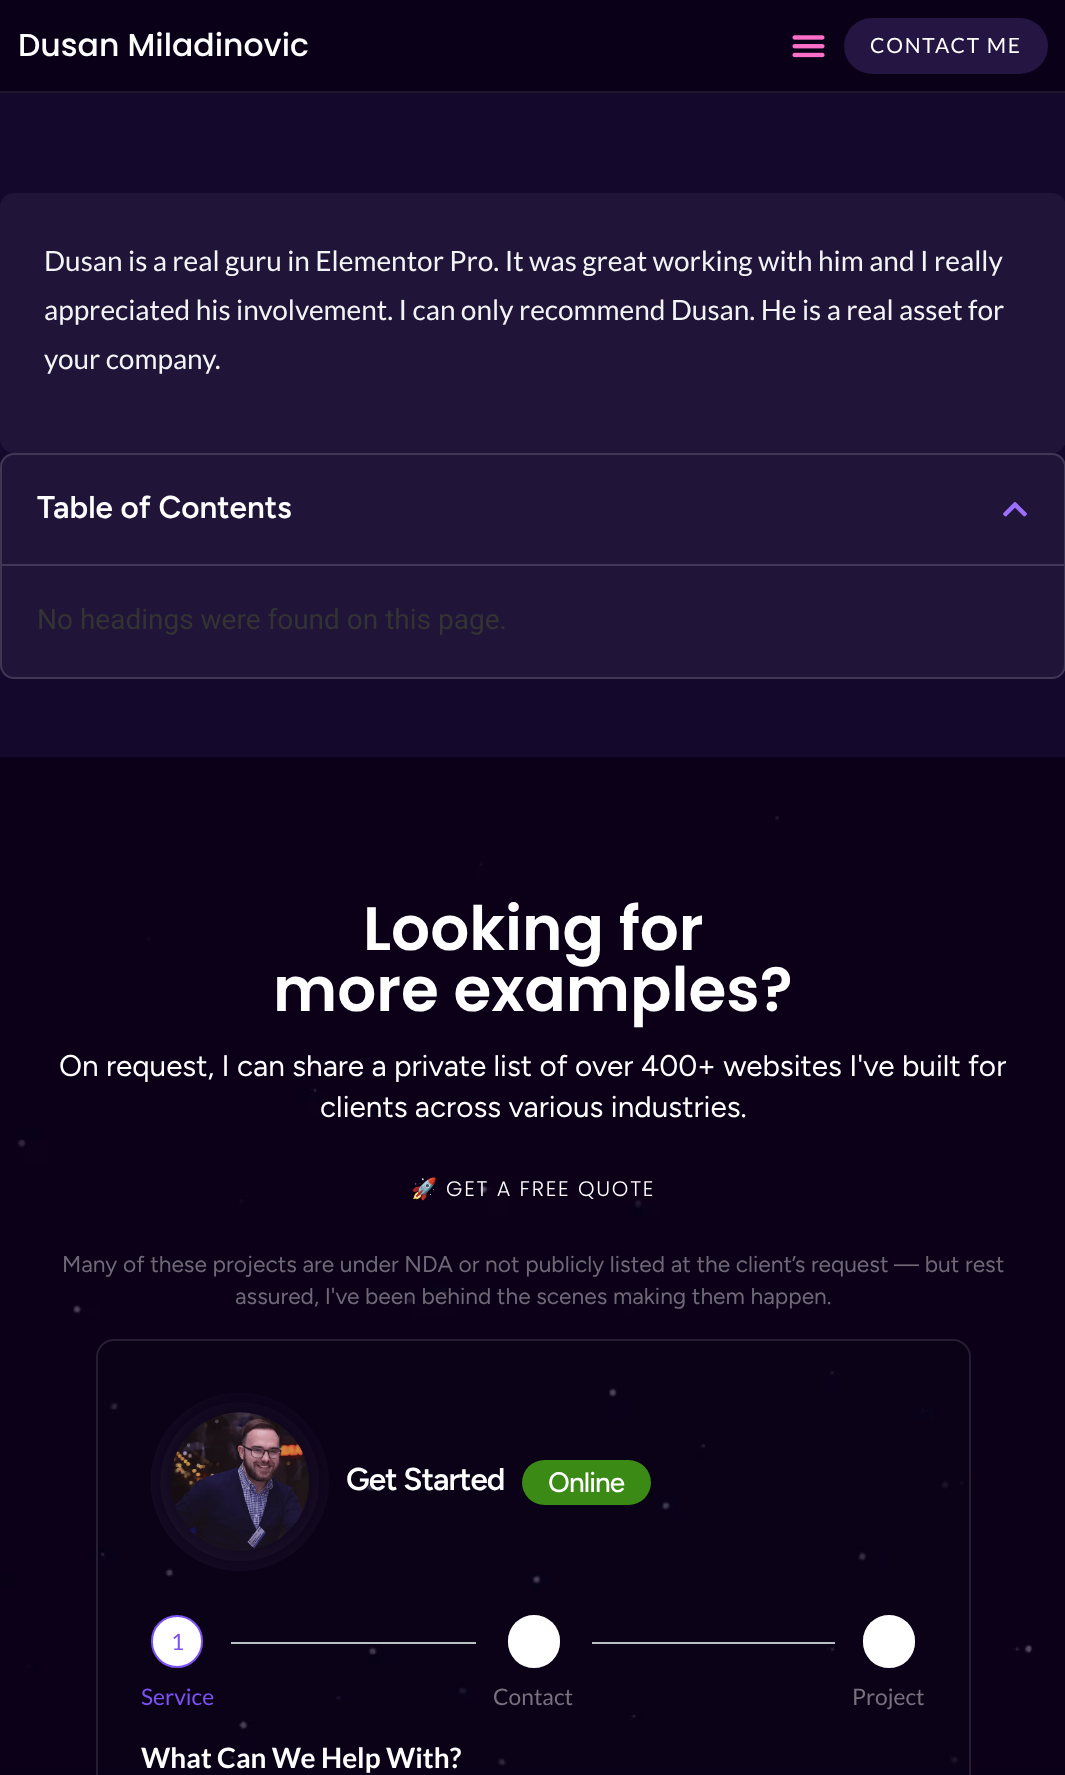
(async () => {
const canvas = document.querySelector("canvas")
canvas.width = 1065
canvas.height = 1775
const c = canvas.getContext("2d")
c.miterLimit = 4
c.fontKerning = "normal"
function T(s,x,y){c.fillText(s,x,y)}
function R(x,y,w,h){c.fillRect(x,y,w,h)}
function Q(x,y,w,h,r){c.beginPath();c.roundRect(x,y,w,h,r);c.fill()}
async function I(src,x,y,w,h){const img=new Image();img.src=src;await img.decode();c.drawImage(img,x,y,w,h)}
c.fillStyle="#14082d"
R(0,0,1065,1775)
c.fillStyle="#0a0118"
R(0,0,1065,91)
c.fillStyle="#1e152a"
R(0,91,1065,2)
c.font="500 31.5px Poppins"
c.fillStyle="#fff"
T("Dusan Miladinovic",18,56)
await I("1.png",792,35,33,23)
c.fillStyle="#241542"
Q(844,18,204,56,28)
c.letterSpacing="1.75px"
c.font="21px Lato"
c.fillStyle="#fff"
T("CONTACT ME",870,53)
c.fillStyle="#201438"
Q(0,193,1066,260,14)
c.letterSpacing="0px"
c.font="28px Lato"
c.fillStyle="#f3f4f6"
T("Dusan is a real guru in Elementor Pro. It was great working with him and I really",44,271)
T("appreciated his involvement. I can only recommend Dusan. He is a real asset for",44,320)
T("your company.",44,369)
c.fillStyle="#201438"
Q(0,453,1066,226,14)
c.beginPath()
c.roundRect(1,454,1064,224,13)
c.strokeStyle="#ffffff26"
c.lineWidth=2
c.stroke()
c.fillStyle="#413756"
R(2,564,1062,2)
c.font="600 31.5px Figtree"
c.fillStyle="#fff"
T("Table of Contents",37,518)
await I("2.png",1003,502,24,15)
c.font="28px Roboto"
c.fillStyle="#333"
T("No headings were found on this page.",37,629)
c.fillStyle="#0a0118"
R(0,1766,1065,9)
await I("3.png",0,757,1065,1009)
c.font="600 61.25px Poppins"
c.fillStyle="#fff"
T("Looking for",363,950)
T("more examples?",273,1011)
c.font="29.75px Figtree"
T("On request, I can share a private list of over 400+ websites I've built for",59,1076)
T("clients across various industries.",320,1117)
c.letterSpacing="1.75px"
c.font="21px Noto Color Emoji"
T("🚀",411,1196)
c.font="300 21px Poppins"
T("GET A FREE QUOTE",446,1196)
c.letterSpacing="0px"
c.font="22.75px Figtree"
c.fillStyle="#6f6977"
T("Many of these projects are under NDA or not publicly listed at the client’s request — but rest",62,1272)
T("assured, I've been behind the scenes making them happen.",235,1304)
c.fillStyle="#0d0c1c2e"
c.beginPath()
c.roundRect(97,1340,873,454,17)
c.fill()
c.strokeStyle="#251d31"
c.stroke()
await I("4.png",150,1393,179,178)
c.letterSpacing="-0.9px"
c.font="600 31.5px Figtree"
c.fillStyle="#fff"
T("Get Started",346,1490)
c.fillStyle="#3b8a16"
Q(522,1460,129,45,22.5)
c.font="500 28px Figtree"
c.fillStyle="#fff"
T("Online",548,1492)
c.beginPath()
c.roundRect(152,1616,50,51,25)
c.fill()
c.strokeStyle="#7d52f4"
c.stroke()
c.letterSpacing="0px"
c.font="22.75px Lato"
c.fillStyle="#7d52f4"
T("1",171,1650)
T("Service",141,1705)
c.fillStyle="#babfc5"
R(231,1642,245,2)
R(592,1642,243,2)
c.fillStyle="#fff"
Q(508,1615,52,53,26)
c.beginPath()
c.roundRect(509,1616,50,51,25)
c.strokeStyle="#ffffff70"
c.stroke()
c.fillStyle="#77717e"
T("Contact",493,1705)
c.fillStyle="#fff"
Q(863,1615,52,53,26)
c.beginPath()
c.roundRect(864,1616,50,51,25)
c.stroke()
c.fillStyle="#77717e"
T("Project",852,1705)
c.font="bold 28px Lato"
c.fillStyle="#fff"
T("What Can We Help With?",141,1768)
})()
